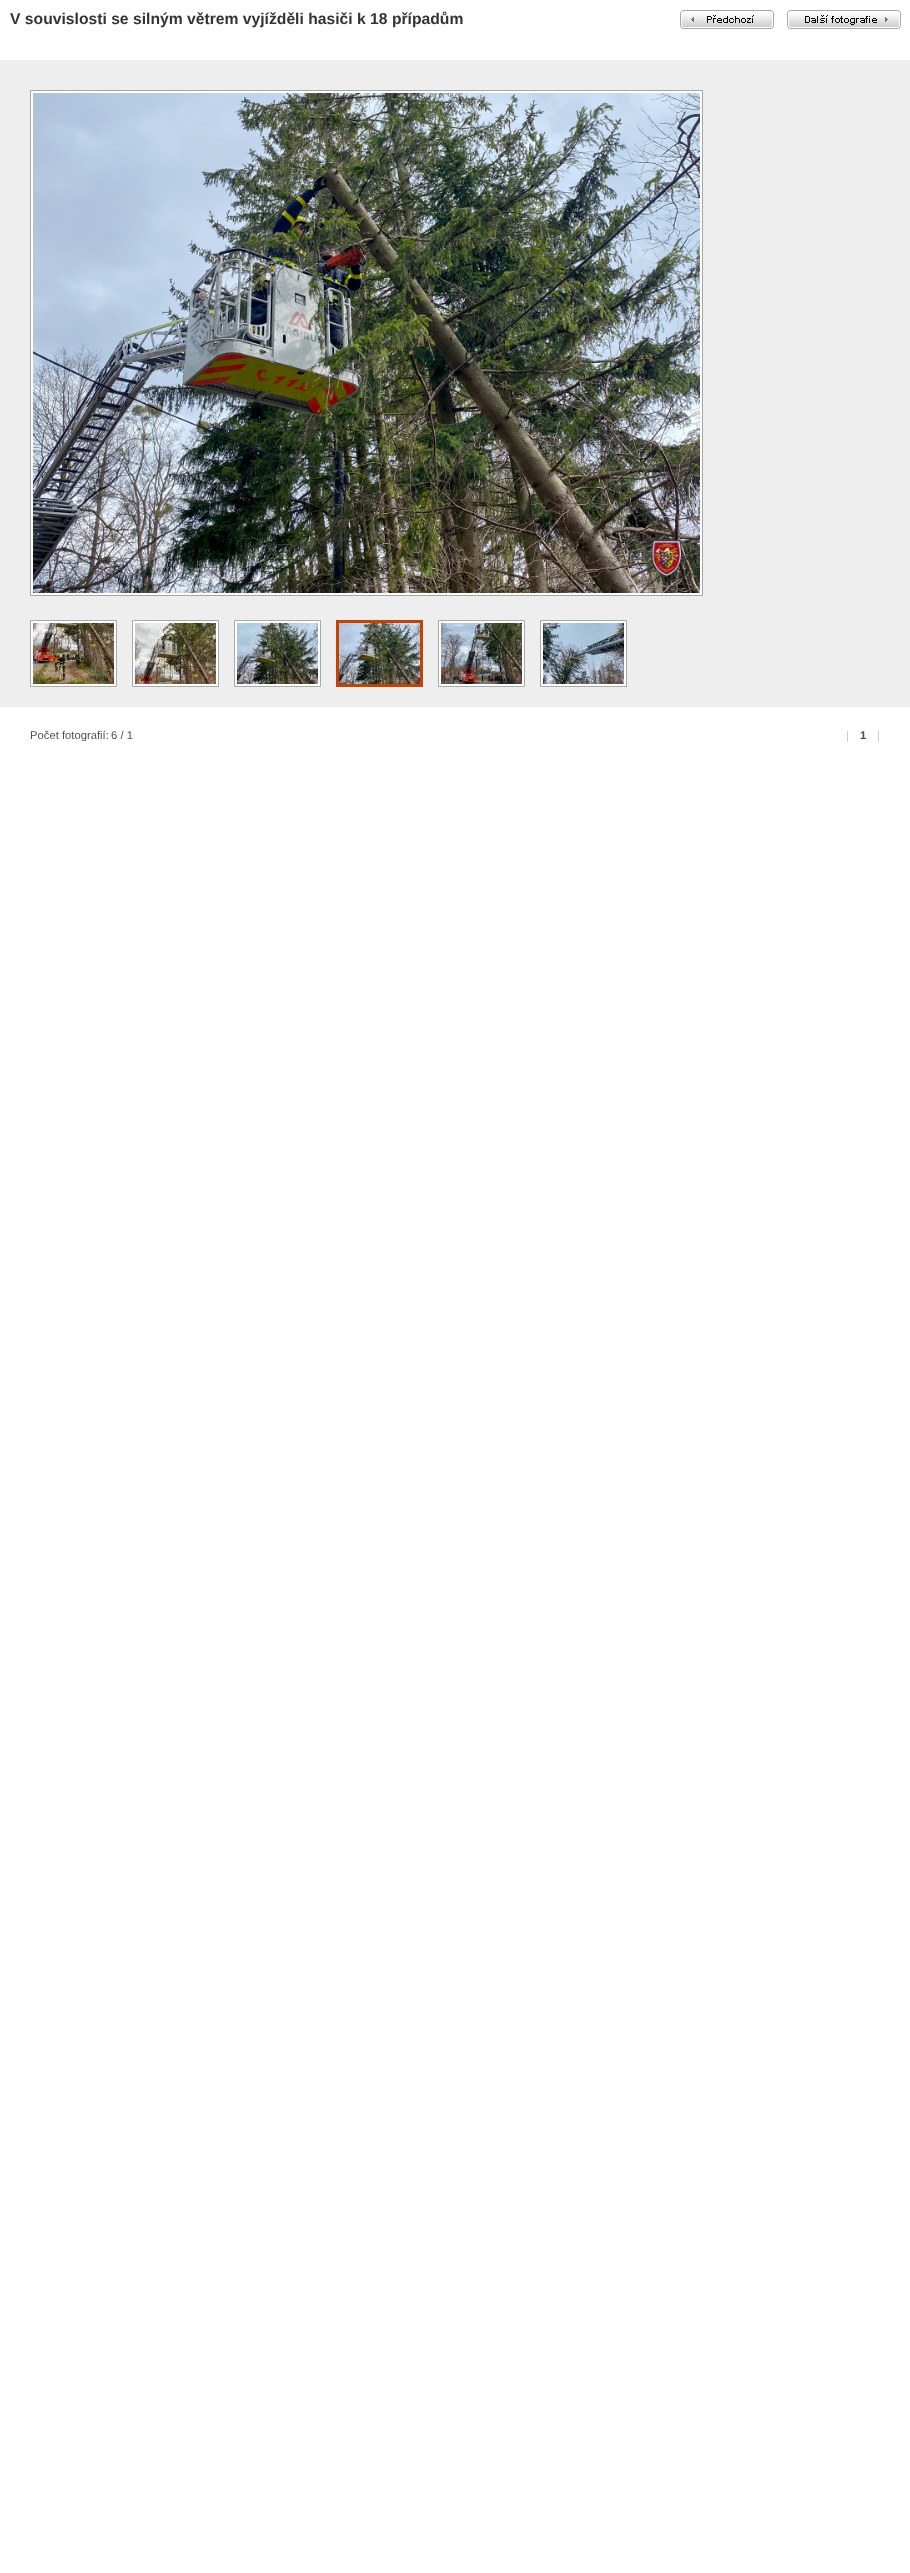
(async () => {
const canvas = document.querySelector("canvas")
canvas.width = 910
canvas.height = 2573
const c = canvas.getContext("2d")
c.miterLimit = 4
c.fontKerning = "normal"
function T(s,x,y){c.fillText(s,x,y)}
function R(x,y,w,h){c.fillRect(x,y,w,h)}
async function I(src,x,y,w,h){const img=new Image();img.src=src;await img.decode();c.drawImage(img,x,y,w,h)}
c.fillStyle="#fff"
R(0,0,910,2573)
c.fillStyle="#eee"
R(0,60,910,647)
await I("1.png",680,10,94,19)
await I("2.png",787,10,114,19)
c.fillStyle="#fff"
c.beginPath()
c.rect(30.5,90.5,672,505)
c.fill()
c.strokeStyle="#a5a5a5"
c.stroke()
await I("3.png",33,93,667,500)
c.beginPath()
c.rect(30.5,620.5,86,66)
c.fill()
c.strokeStyle="#a9a9a9"
c.stroke()
await I("4.png",33,623,81,61)
c.beginPath()
c.rect(132.5,620.5,86,66)
c.fill()
c.stroke()
await I("5.png",135,623,81,61)
c.beginPath()
c.rect(234.5,620.5,86,66)
c.fill()
c.stroke()
await I("6.png",237,623,81,61)
c.strokeStyle="#c74200"
c.lineWidth=3
c.strokeRect(337.5,621.5,84,64)
await I("7.png",339,623,81,61)
c.beginPath()
c.rect(438.5,620.5,86,66)
c.fill()
c.strokeStyle="#a9a9a9"
c.lineWidth=1
c.stroke()
await I("8.png",441,623,81,61)
c.beginPath()
c.rect(540.5,620.5,86,66)
c.fill()
c.stroke()
await I("9.png",543,623,81,61)
c.font="bold 15.7px Liberation Sans"
c.fillStyle="#333"
T("V souvislosti se silným větrem vyjížděli hasiči k 18 případům",10,24)
c.save()
c.beginPath()
c.rect(0,729,910,12)
c.clip()
c.font="11.25px Liberation Sans"
c.fillStyle="#4f4f4f"
T("Počet fotografií:",30,739)
c.restore()
c.font="11.25px Liberation Sans"
c.fillStyle="#4f4f4f"
T("6 / 1",111,739)
c.fillStyle="#ccc"
T("|",846,739)
c.font="bold 11.25px Liberation Sans"
c.fillStyle="#4f4f4f"
T("1",860,739)
c.font="11.25px Liberation Sans"
c.fillStyle="#ccc"
T("|",877,739)
})()
